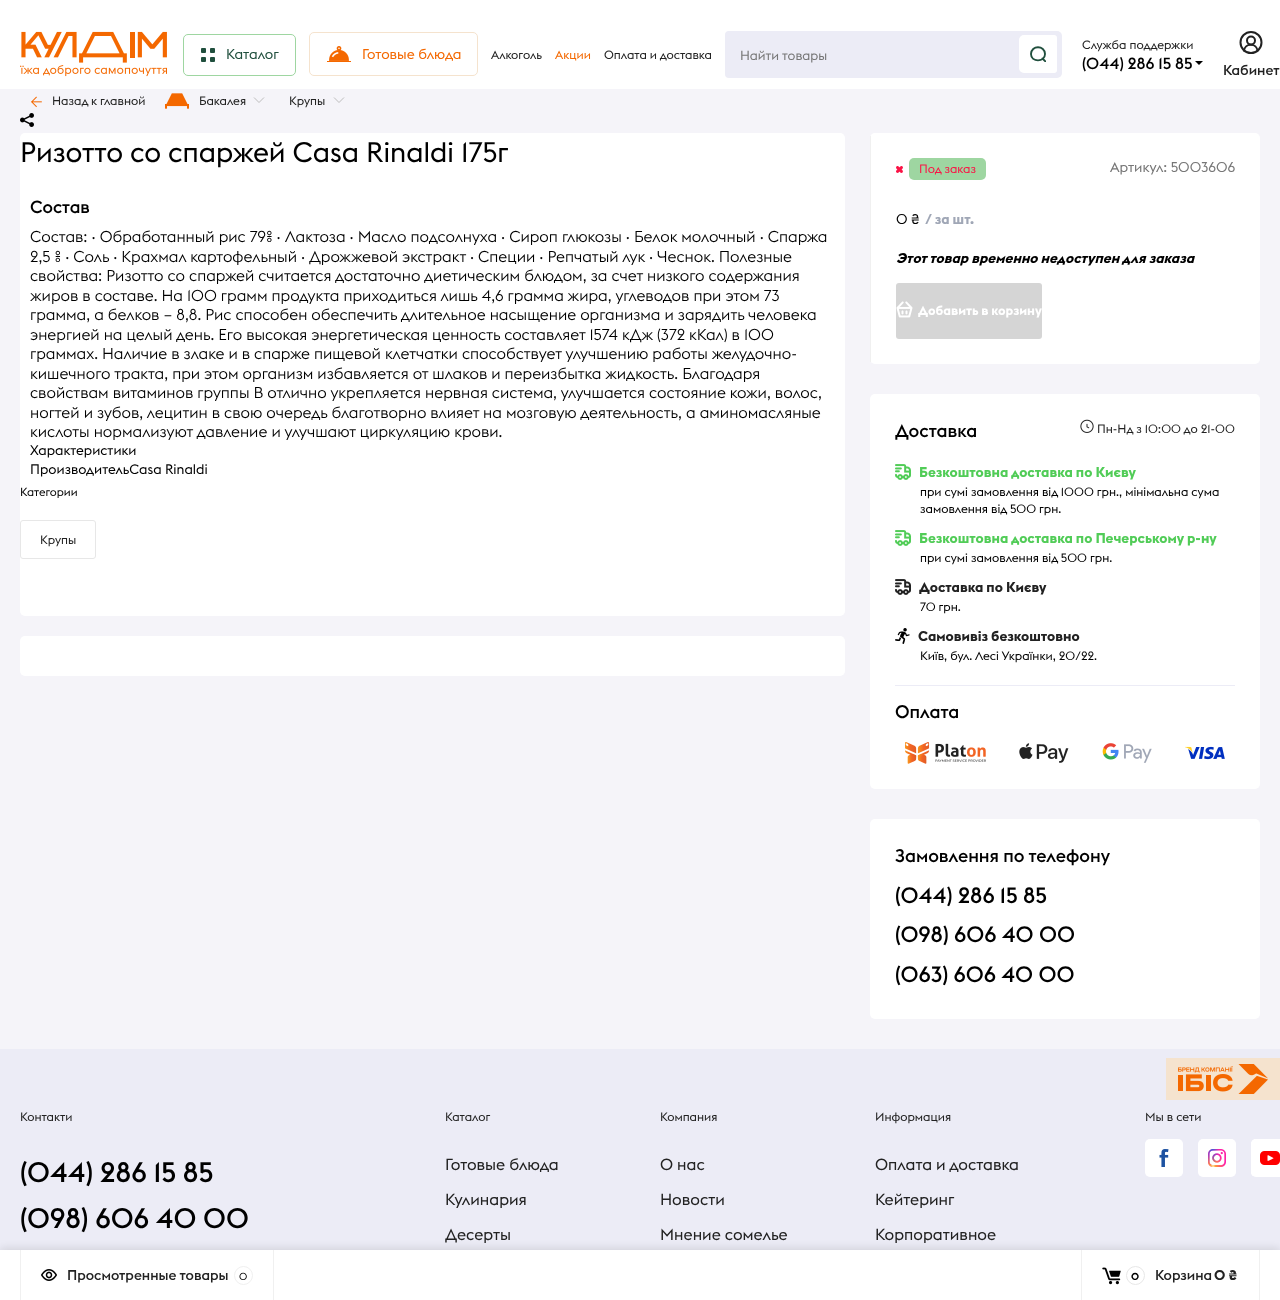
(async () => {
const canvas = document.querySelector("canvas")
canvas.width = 1280
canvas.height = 1300
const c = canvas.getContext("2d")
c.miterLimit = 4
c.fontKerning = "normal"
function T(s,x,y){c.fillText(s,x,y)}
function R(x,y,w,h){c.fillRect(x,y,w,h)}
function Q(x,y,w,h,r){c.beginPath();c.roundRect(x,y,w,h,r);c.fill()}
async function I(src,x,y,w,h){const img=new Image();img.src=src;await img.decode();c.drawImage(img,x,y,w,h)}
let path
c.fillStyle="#fff"
R(0,0,1280,1300)
await I("1.png",20,31,147,46)
c.beginPath()
c.roundRect(183.5,34.5,112,41,4.5)
c.strokeStyle="#9ed6a1"
c.stroke()
await I("2.png",201,48,14,14)
c.font="14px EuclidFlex"
c.fillStyle="#204f3d"
T("Каталог",226,59)
c.beginPath()
c.roundRect(309.5,32.5,168,43,4.5)
c.strokeStyle="#f5e3ce"
c.stroke()
await I("3.png",327,46,24,16)
c.fillStyle="#f46800"
T("Готовые блюда",362,59)
c.font="12px EuclidFlex"
c.fillStyle="#222"
T("Алкоголь",491,59)
c.fillStyle="#f46800"
T("Акции",555,59)
c.fillStyle="#222"
T("Оплата и доставка",604,59)
c.fillStyle="#ececf6"
Q(725,31,337,47,5)
c.beginPath()
c.roundRect(725,31,294,47,[4,0,0,4])
c.fill()
c.font="13px EuclidFlex"
c.fillStyle="#777"
T("Найти товары",740,60)
c.fillStyle="#fff"
c.beginPath()
c.roundRect(1019,35,38,38,[5,3,3,5])
c.fill()
c.save()
c.beginPath()
c.rect(1030,46,16,16)
c.clip()
path = new Path2D("M1042.5 58.5l3.5 3.5m-1-8c0 8.5-14 8.5-14 0c0-9 14-9 14 0z")
c.strokeStyle="#204f3d"
c.lineWidth=1.9
c.lineCap="round"
c.stroke(path)
c.restore()
c.font="12px EuclidFlex"
c.fillStyle="#222"
T("Служба поддержки",1082,49)
c.font="500 16px EuclidFlex"
c.fillStyle="#000"
T("(044) 286 15 85",1082,69)
path = new Path2D("M1195 61h8l-4 4z")
c.fill(path)
c.beginPath()
c.arc(1251,42.5,10.5,0,7)
c.strokeStyle="#222"
c.lineWidth=2
c.stroke()
c.beginPath()
c.arc(1251,40.5,4,0,7)
c.stroke()
path = new Path2D("M1257.5 51.5c0-9-13.5-9-13.5 0")
c.stroke(path)
c.font="500 14px EuclidFlex"
c.fillStyle="#222"
T("Кабинет",1223,75)
c.fillStyle="#f5f4f9"
R(0,89,1280,960)
await I("4.png",31,96,11,12)
c.font="12px EuclidFlex"
c.fillStyle="#222"
T("Назад к главной",52,105)
await I("5.png",165,93,24,16)
T("Бакалея",199,105)
path = new Path2D("M254 97.5l5 5l5-5")
c.strokeStyle="#bdbdbd"
c.lineWidth=1
c.stroke(path)
T("Крупы",289,105)
path = new Path2D("M334 97.5l5 5l5-5")
c.stroke(path)
await I("6.png",20,113,14,14)
c.fillStyle="#fff"
Q(20,133,825,483,5)
c.font="28px EuclidFlex"
c.fillStyle="#000"
T("Ризотто со спаржей Casa Rinaldi 175г",20,162)
c.font="500 17.5px EuclidFlex"
T("Состав",30,213)
c.font="300 15.6px EuclidFlex"
T("Состав: · Обработанный рис 79% ·",30,242)
T("Лактоза · Масло подсолнуха · Сироп глюкозы · Белок молочный · Спаржа",285,242)
T("2,5 % · Соль · Крахмал картофельный ·",30,262)
T("Дрожжевой экстракт · Специи · Репчатый лук ·",309,262)
T("Чеснок. Полезные",657,262)
T("свойства: Ризотто со спаржей считается достаточно диетическим блюдом, за счет низкого содержания",30,281)
T("жиров в составе. На 100 грамм продукта приходиться лишь 4,6 грамма жира, углеводов при этом 73",30,301)
T("грамма, а белков – 8,8. Рис способен обеспечить длительное насыщение организма и зарядить человека",30,320)
T("энергией на целый день. Его высокая энергетическая ценность составляет 1574 кДж (372 кКал) в 100",30,340)
T("граммах. Наличие в злаке и в спарже пищевой клетчатки способствует улучшению работы желудочно-",30,359)
T("кишечного тракта, при этом организм избавляется от шлаков и переизбытка жидкость. Благодаря",30,379)
T("свойствам витаминов группы В отлично укрепляется нервная система, улучшается состояние кожи, волос,",30,398)
T("ногтей и зубов, лецитин в свою очередь благотворно влияет на мозговую деятельность, а аминомасляные",30,418)
T("кислоты нормализуют давление и улучшают циркуляцию крови.",30,437)
c.font="13.6px EuclidFlex"
T("Характеристики",30,455)
T("ПроизводительCasa Rinaldi",30,474)
c.font="11.5px EuclidFlex"
T("Категории",20,496)
c.beginPath()
c.roundRect(20.5,520.5,75,38,2.5)
c.strokeStyle="#e7e7e7"
c.stroke()
c.font="12px EuclidFlex"
c.fillStyle="#222"
T("Крупы",40,544)
c.fillStyle="#fff"
Q(20,636,825,40,5)
Q(870,133,390,231,5)
c.fillStyle="#f0f0f0"
R(870,136,1,226)
c.fillStyle="#fa1446"
path = new Path2D("M902.5 166.5c1.5 1.5-1 3-2 4c-1 1-2.5 3.5-4 2c-1.5-1.5 1-3 2-4c1-1 2.5-3.5 4-2z")
c.fill(path)
c.fillStyle="#9ed6a1"
Q(909,158,77,22,5)
c.fillStyle="#fa1446"
T("Под заказ",919,173)
path = new Path2D("M896.5 166.5c1.5-1.5 3 1 4 2c1 1 3.5 2.5 2 4c-1.5 1.5-3-1-4-2c-1-1-3.5-2.5-2-4z")
c.fill(path)
c.font="14px EuclidFlex"
c.fillStyle="#777"
T("Артикул: 5003606",1110,172)
c.fillStyle="#000"
T("0 ₴",896,224)
c.font="bold 14px EuclidFlex"
c.fillStyle="#a0a7b6"
T("/ за шт.",925,224)
c.font="italic bold 14px EuclidFlex"
c.fillStyle="#000"
T("Этот товар временно недоступен для заказа",896,263)
c.fillStyle="#d5d5d5"
Q(896,283,146,56,3)
await I("7.png",896,301,17,17)
c.font="bold 13px EuclidFlex"
c.fillStyle="#fff"
T("Добавить в корзину",918,315)
Q(870,394,390,395,5)
c.font="500 18px EuclidFlex"
c.fillStyle="#000"
T("Доставка",895,437)
await I("8.png",1080,419,14,14)
c.font="12px EuclidFlex"
c.fillStyle="#222"
T("Пн-Нд з 10:00 до 21-00",1097,433)
await I("9.png",895,464,16,16)
c.font="bold 14px EuclidFlex"
c.fillStyle="#51cc57"
T("Безкоштовна доставка по Києву",919,477)
c.font="12px EuclidFlex"
c.fillStyle="#000"
T("при сумі замовлення від 1000 грн., мінімальна сума",920,496)
T("замовлення від 500 грн.",920,513)
await I("9.png",895,530,16,16)
c.font="bold 14px EuclidFlex"
c.fillStyle="#51cc57"
T("Безкоштовна доставка по Печерському р-ну",919,543)
c.font="12px EuclidFlex"
c.fillStyle="#000"
T("при сумі замовлення від 500 грн.",920,562)
await I("10.png",895,579,16,16)
c.font="bold 14px EuclidFlex"
c.fillStyle="#222"
T("Доставка по Києву",919,592)
c.font="12px EuclidFlex"
c.fillStyle="#000"
T("70 грн.",920,611)
await I("11.png",895,628,15,16)
c.font="bold 14px EuclidFlex"
c.fillStyle="#222"
T("Самовивіз безкоштовно",918,641)
c.font="12px EuclidFlex"
c.fillStyle="#000"
T("Київ, бул. Лесі Українки, 20/22.",920,660)
c.fillStyle="#ececf6"
R(895,685,340,1)
c.font="500 18px EuclidFlex"
c.fillStyle="#000"
T("Оплата",895,718)
await I("12.png",905,742,81,22)
await I("13.png",1019,743,50,20)
await I("14.png",1102,743,50,20)
await I("15.png",1185,746,40,14)
c.fillStyle="#fff"
Q(870,819,390,200,5)
c.fillStyle="#000"
T("Замовлення по телефону",895,862)
c.font="500 22px EuclidFlex"
T("(044) 286 15 85",895,903)
T("(098) 606 40 00",895,942)
T("(063) 606 40 00",895,982)
c.fillStyle="#ececf6"
R(0,1049,1280,201)
c.fillStyle="#f5e3ce"
R(1166,1058,114,42)
await I("16.png",1178,1064,90,30)
c.font="12px EuclidFlex"
c.fillStyle="#222"
T("Контакти",20,1121)
c.font="500 28px EuclidFlex"
c.fillStyle="#000"
T("(044) 286 15 85",20,1182)
T("(098) 606 40 00",20,1228)
c.font="12px EuclidFlex"
c.fillStyle="#222"
T("Каталог",445,1121)
c.font="16px EuclidFlex"
T("Готовые блюда",445,1170)
T("Кулинария",445,1205)
T("Десерты",445,1240)
c.font="12px EuclidFlex"
T("Компания",660,1121)
c.font="16px EuclidFlex"
T("О нас",660,1170)
T("Новости",660,1205)
T("Мнение сомелье",660,1240)
c.font="12px EuclidFlex"
T("Информация",875,1121)
c.font="16px EuclidFlex"
T("Оплата и доставка",875,1170)
T("Кейтеринг",875,1205)
T("Корпоративное",875,1240)
c.font="12px EuclidFlex"
T("Мы в сети",1145,1121)
c.fillStyle="#fff"
Q(1145,1139,38,38,5)
await I("17.png",1159,1149,10,18)
Q(1198,1139,38,38,5)
await I("18.png",1208,1149,18,18)
c.beginPath()
c.roundRect(1251,1139,29,38,[5,0,0,5])
c.fill()
await I("19.png",1251,1139,29,37)
c.fillStyle="#0000001c"
c.filter="blur(4.5px)"
c.beginPath()
c.rect(0,1248,1280,50)
c.fill()
c.filter="none"
c.fillStyle="#fff"
R(0,1250,1280,50)
c.fillStyle="#f0f0f0"
R(273,1250,1,50)
R(20,1250,1,50)
await I("20.png",41,1269,16,12)
c.font="500 14px EuclidFlex"
c.fillStyle="#222"
T("Просмотренные товары",67,1280)
c.beginPath()
c.arc(243.5,1275.5,9,0,7)
c.strokeStyle="#f0f0f0"
c.stroke()
c.font="10px EuclidFlex"
c.fillStyle="#000"
T("0",239,1280)
c.fillStyle="#f0f0f0"
R(1259,1250,1,50)
R(1081,1250,1,50)
await I("21.png",1102,1267,19,18)
c.beginPath()
c.arc(1135.5,1275.5,9,0,7)
c.strokeStyle="#e7e7e7"
c.stroke()
c.font="bold 10px EuclidFlex"
c.fillStyle="#000"
T("0",1131,1280)
c.font="500 14px EuclidFlex"
c.fillStyle="#222"
T("Корзина",1155,1280)
c.font="bold 14px EuclidFlex"
T("0 ₴",1214,1280)
})()
